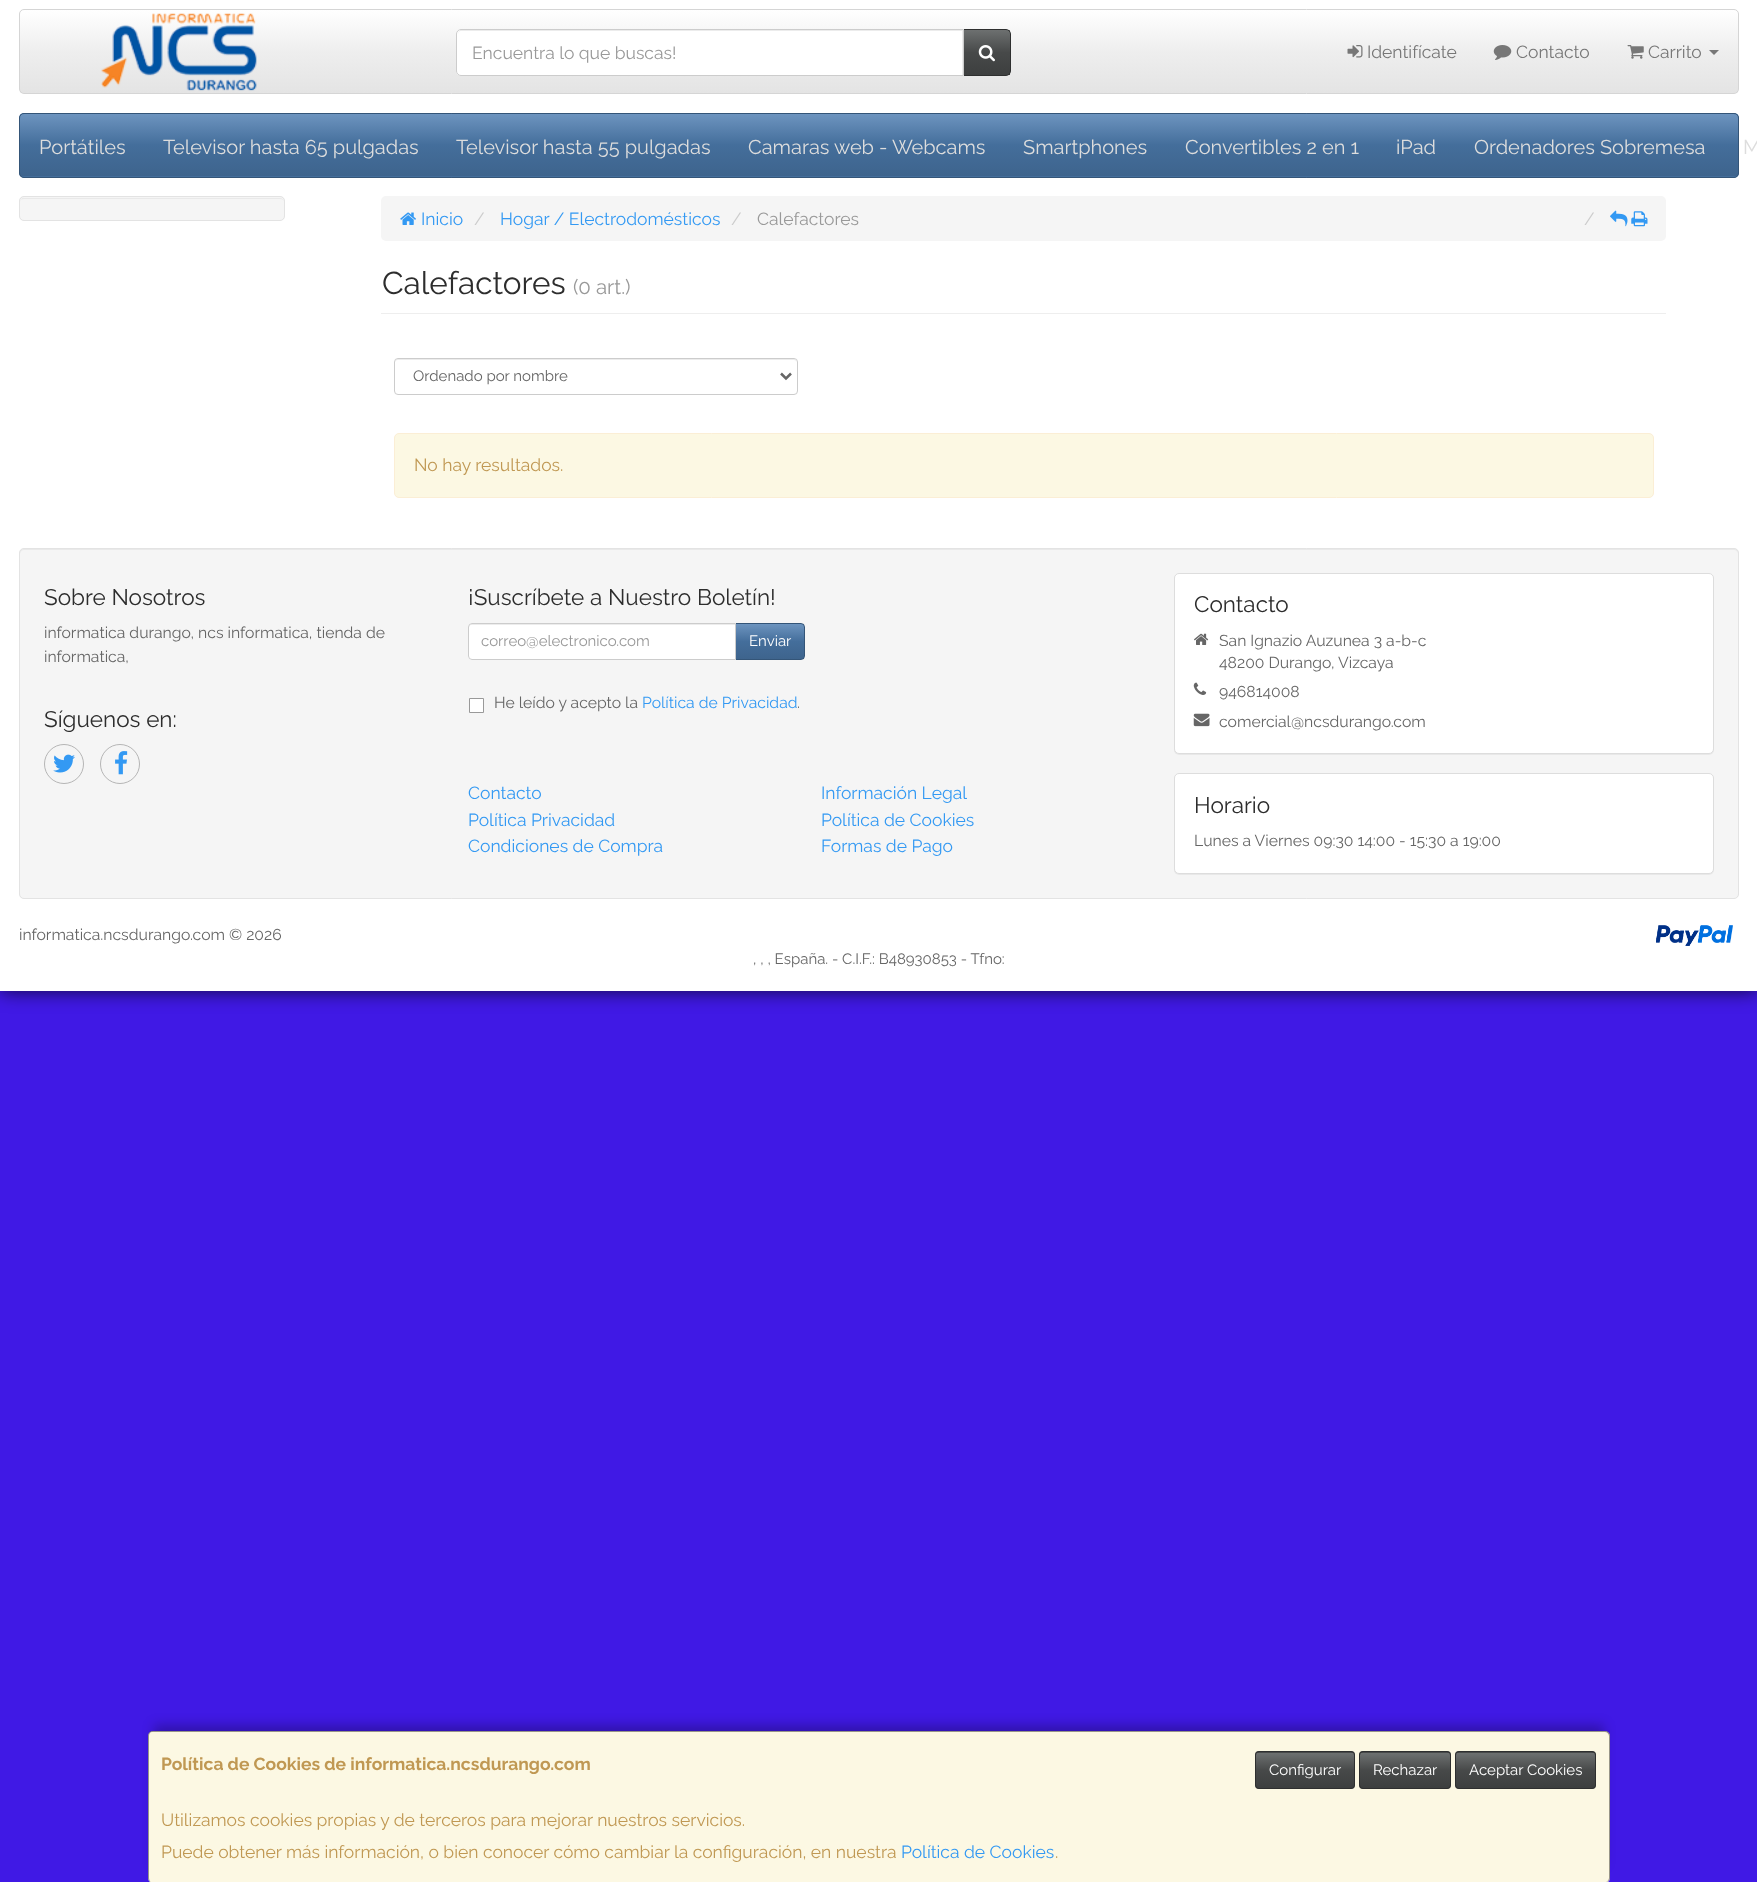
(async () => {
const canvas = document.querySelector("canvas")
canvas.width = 1757
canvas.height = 1882
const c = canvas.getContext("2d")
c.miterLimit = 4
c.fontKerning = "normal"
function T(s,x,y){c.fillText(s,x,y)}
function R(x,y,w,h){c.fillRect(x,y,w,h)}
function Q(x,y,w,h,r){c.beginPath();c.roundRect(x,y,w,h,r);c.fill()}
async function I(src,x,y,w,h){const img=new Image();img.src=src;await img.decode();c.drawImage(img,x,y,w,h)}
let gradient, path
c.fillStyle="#4019e5"
R(0,0,1757,1882)
c.fillStyle="#000000bf"
c.filter="blur(9.5px)"
c.beginPath()
c.rect(0,0,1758,991)
c.fill()
c.filter="none"
c.fillStyle="#fff"
R(0,0,1757,991)
c.save()
c.beginPath()
c.roundRect(19,9,1720,85,5)
c.clip()
gradient = c.createLinearGradient(879,10,879,93)
gradient.addColorStop(0,"#fff")
gradient.addColorStop(.5,"#eee")
gradient.addColorStop(1,"#e4e4e4")
c.fillStyle = gradient
R(20,10,1718,83)
c.restore()
c.beginPath()
c.roundRect(19.5,9.5,1719,84,4.5)
c.strokeStyle="#d5d5d5"
c.stroke()
await I("1.png",101,13,156,78)
gradient = c.createLinearGradient(987,30,987,75)
gradient.addColorStop(0,"#6d7070")
gradient.addColorStop(.5,"#474949")
gradient.addColorStop(1,"#3d3f3f")
c.fillStyle = gradient
R(964,30,46,45)
c.beginPath()
c.roundRect(963.5,29.5,47,46,[0,4.5,4.5,0])
c.strokeStyle="#2e2f2f"
c.stroke()
c.fillStyle="#fff"
c.beginPath()
c.roundRect(456,29,508,47,[5,0,0,5])
c.fill()
c.fillStyle="#ececec"
path = new Path2D("M461 31h501v44h1v-45h-501c-3 0-4 2-4 5c0-2 1-4 3-4z")
c.fill(path)
c.beginPath()
c.roundRect(456.5,29.5,507,46,[4.5,0,0,4.5])
c.strokeStyle="#ccc"
c.stroke()
c.font="17.5px Raleway"
c.fillStyle="#999"
T("Encuentra lo que buscas!",472,59)
await I("2.png",978,45,17,17)
await I("3.png",1347,45,16,13)
c.fillStyle="#777"
T("Identifícate",1367,58)
await I("4.png",1493,45,19,15)
T("Contacto",1516,58)
await I("5.png",1627,45,17,14)
T("Carrito",1648,58)
path = new Path2D("M1709 50h10l-5 5z")
c.fill(path)
c.fillStyle="#446e9b"
Q(19,113,1720,65,5)
gradient = c.createLinearGradient(879,114,879,176)
gradient.addColorStop(0,"#6d94bf")
gradient.addColorStop(.5,"#446e9b")
gradient.addColorStop(1,"#3e648d")
c.fillStyle = gradient
R(20,114,1718,62)
c.beginPath()
c.roundRect(19.5,113.5,1719,64,4.5)
c.strokeStyle="#345578"
c.stroke()
c.font="20px Raleway"
c.fillStyle="#ddd"
T("Portátiles",39,154)
T("Televisor hasta 65 pulgadas",163,154)
T("Televisor hasta 55 pulgadas",456,154)
T("Camaras web - Webcams",748,154)
T("Smartphones",1023,154)
T("Convertibles 2 en 1",1185,154)
T("iPad",1396,154)
T("Ordenadores Sobremesa",1474,154)
T("M",1743,154)
c.fillStyle="#f5f5f5"
Q(19,196,266,25,5)
c.fillStyle="#e9e9e9"
path = new Path2D("M24 199h256c2 0 4 1 4 3c0-2-2-4-4-4h-258l-1 2l-1 2c0-2 2-3 4-3z")
c.fill(path)
c.beginPath()
c.roundRect(19.5,196.5,265,24,4.5)
c.strokeStyle="#e3e3e3"
c.stroke()
c.fillStyle="#f5f5f5"
Q(381,196,1285,45,5)
await I("6.png",400,212,16,13)
c.font="17.5px Raleway"
c.fillStyle="#3399f3"
T("Inicio",421,225)
c.fillStyle="#ccc"
T("/",474,225)
c.fillStyle="#3399f3"
T("Hogar / Electrodomésticos",500,225)
c.fillStyle="#ccc"
T("/",731,225)
c.fillStyle="#999"
T("Calefactores",757,225)
c.fillStyle="#ccc"
T("/",1584,225)
await I("7.png",1610,210,18,17)
await I("8.png",1631,211,17,16)
c.fillStyle="#eee"
R(381,313,1285,1)
c.font="31.5px Raleway"
c.fillStyle="#2d2d2d"
T("Calefactores",382,294)
c.font="20.5px Raleway"
c.fillStyle="#999"
T("(0 art.)",573,294)
c.fillStyle="#ececec"
path = new Path2D("M398 360h396c1 0 2 1 2 2c0-2-1-3-2-3h-396l-2 1l-1 2c0-1 1-2 3-2z")
c.fill(path)
c.beginPath()
c.roundRect(394.5,358.5,403,36,3.5)
c.strokeStyle="#ccc"
c.stroke()
path = new Path2D("M781 373.5l5 5l5-5")
c.strokeStyle="#666"
c.lineWidth=2.5
c.stroke(path)
c.font="15px Raleway"
c.fillStyle="#666"
T("Ordenado por nombre",413,381)
c.fillStyle="#fcf8e3"
c.beginPath()
c.roundRect(394.5,433.5,1259,64,4.5)
c.fill()
c.strokeStyle="#fbeed5"
c.lineWidth=1
c.stroke()
c.font="17.5px Raleway"
c.fillStyle="#c09853"
T("No hay resultados.",414,471)
c.fillStyle="#f5f5f5"
Q(19,548,1720,351,5)
c.fillStyle="#e9e9e9"
path = new Path2D("M24 550h1710c2 0 4 2 4 4v-1c0-2-2-4-4-4h-1710c-2 0-4 2-4 4v1c0-2 2-4 4-4z")
c.fill(path)
c.beginPath()
c.roundRect(19.5,548.5,1719,350,4.5)
c.strokeStyle="#e3e3e3"
c.stroke()
c.font="22.5px Raleway"
c.fillStyle="#2d2d2d"
T("Sobre Nosotros",44,605)
c.font="15.75px Raleway"
c.fillStyle="#666"
T("informatica durango, ncs informatica, tienda de",44,638)
T("informatica,",44,662)
c.font="22.5px Raleway"
c.fillStyle="#2d2d2d"
T("Síguenos en:",44,727)
c.beginPath()
c.arc(64,764,19.5,0,7)
c.strokeStyle="#b5b5b5"
c.stroke()
await I("9.png",53,754,22,19)
c.beginPath()
c.arc(120,764,19.5,0,7)
c.stroke()
await I("10.png",115,751,13,24)
T("¡Suscríbete a Nuestro Boletín!",468,605)
gradient = c.createLinearGradient(770,624,770,659)
gradient.addColorStop(0,"#6d94bf")
gradient.addColorStop(.5,"#446e9b")
gradient.addColorStop(1,"#3e648d")
c.fillStyle = gradient
R(736,624,68,35)
c.beginPath()
c.roundRect(735.5,623.5,69,36,[0,3.5,3.5,0])
c.strokeStyle="#345578"
c.stroke()
c.fillStyle="#fff"
c.beginPath()
c.roundRect(468,623,268,37,[4,0,0,4])
c.fill()
c.fillStyle="#ececec"
path = new Path2D("M471 625h264v-1h-263c-2 0-3 1-3 2v2c0-2 1-3 2-3z")
c.fill(path)
c.beginPath()
c.roundRect(468.5,623.5,267,36,[3.5,0,0,3.5])
c.strokeStyle="#ccc"
c.stroke()
c.font="15px Raleway"
c.fillStyle="#999"
T("correo@electronico.com",481,646)
c.fillStyle="#fff"
T("Enviar",749,646)
c.beginPath()
c.rect(469.5,698.5,14,14)
c.fill()
c.strokeStyle="#999"
c.stroke()
c.font="15.75px Raleway"
c.fillStyle="#666"
T("He leído y acepto la",494,708)
c.fillStyle="#3399f3"
T("Política de Privacidad",642,708)
c.fillStyle="#666"
T(".",797,708)
c.font="17.5px Raleway"
c.fillStyle="#3399f3"
T("Contacto",468,799)
T("Información Legal",821,799)
T("Política Privacidad",468,826)
T("Política de Cookies",821,826)
T("Condiciones de Compra",468,852)
T("Formas de Pago",821,852)
c.fillStyle="#0000000d"
c.filter="blur(0.5px)"
c.beginPath()
c.roundRect(1174,574,540,181,5)
c.fill()
c.filter="none"
c.fillStyle="#fff"
c.beginPath()
c.roundRect(1174.5,573.5,539,180,4.5)
c.fill()
c.strokeStyle="#ddd"
c.stroke()
c.font="22.5px Raleway"
c.fillStyle="#2d2d2d"
T("Contacto",1194,612)
await I("11.png",1194,633,15,12)
c.font="15.75px Raleway"
c.fillStyle="#666"
T("San Ignazio Auzunea 3 a-b-c",1219,646)
T("48200 Durango",1219,668)
T(",",1331,668)
T("Vizcaya",1338,668)
await I("12.png",1193,682,14,13)
T("946814008",1219,697)
await I("13.png",1193,713,17,14)
T("comercial@ncsdurango.com",1219,727)
c.fillStyle="#0000000d"
c.filter="blur(0.5px)"
c.beginPath()
c.roundRect(1174,774,540,101,5)
c.fill()
c.filter="none"
c.fillStyle="#fff"
c.beginPath()
c.roundRect(1174.5,773.5,539,100,4.5)
c.fill()
c.stroke()
c.font="22.5px Raleway"
c.fillStyle="#2d2d2d"
T("Horario",1194,813)
c.font="15.75px Raleway"
c.fillStyle="#666"
T("Lunes a Viernes 09:30 14:00 - 15:30 a 19:00",1194,846)
T("informatica.ncsdurango.com © 2026",19,940)
await I("14.png",1656,925,77,21)
c.font="15px Raleway"
T(", , , España. - C.I.F.: B48930853 - Tfno:",753,964)
c.fillStyle="#00000040"
c.filter="blur(6px)"
c.beginPath()
c.rect(154,1725,1450,139)
c.fill()
c.filter="none"
c.fillStyle="#fcf8e3"
Q(148,1731,1462,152,5)
c.fillStyle="#00000066"
path = new Path2D("M152 1731h1453c3 0 5 2 5 5v142c0 2-2 4-5 4h-1453c-2 0-4-2-4-4v-142c0-3 2-5 4-5zm0 1h1453c2 0 4 2 4 4v142c0 2-2 4-4 4h-1453c-2 0-3-2-3-4v-142c0-2 1-4 3-4z")
c.fill(path,"evenodd")
c.font="bold 17.5px Raleway"
c.fillStyle="#c09853"
T("Política de Cookies de informatica.ncsdurango.com",161,1770)
c.fillStyle="#474949"
Q(1255,1751,100,38,4)
gradient = c.createLinearGradient(1305,1753,1305,1788)
gradient.addColorStop(0,"#6d7070")
gradient.addColorStop(.5,"#474949")
gradient.addColorStop(1,"#3d3f3f")
c.fillStyle = gradient
R(1256,1753,98,35)
c.beginPath()
c.roundRect(1255.5,1751.5,99,37,3.5)
c.strokeStyle="#2e2f2f"
c.stroke()
c.font="15px Raleway"
c.fillStyle="#fff"
T("Configurar",1269,1775)
c.fillStyle="#474949"
Q(1359,1751,92,38,4)
gradient = c.createLinearGradient(1405,1753,1405,1788)
gradient.addColorStop(0,"#6d7070")
gradient.addColorStop(.5,"#474949")
gradient.addColorStop(1,"#3d3f3f")
c.fillStyle = gradient
R(1360,1753,90,35)
c.beginPath()
c.roundRect(1359.5,1751.5,91,37,3.5)
c.stroke()
c.fillStyle="#fff"
T("Rechazar",1373,1775)
c.fillStyle="#474949"
Q(1455,1751,141,38,4)
gradient = c.createLinearGradient(1526,1753,1526,1788)
gradient.addColorStop(0,"#6d7070")
gradient.addColorStop(.5,"#474949")
gradient.addColorStop(1,"#3d3f3f")
c.fillStyle = gradient
R(1456,1753,139,35)
c.beginPath()
c.roundRect(1455.5,1751.5,140,37,3.5)
c.stroke()
c.fillStyle="#fff"
T("Aceptar Cookies",1469,1775)
c.font="17.5px Raleway"
c.fillStyle="#c09853"
T("Utilizamos cookies propias y de terceros para mejorar nuestros servicios.",161,1826)
T("Puede obtener más información, o bien conocer cómo cambiar la configuración, en nuestra",161,1858)
c.fillStyle="#3399f3"
T("Política de Cookies",901,1858)
c.fillStyle="#c09853"
T(".",1055,1858)
})()
